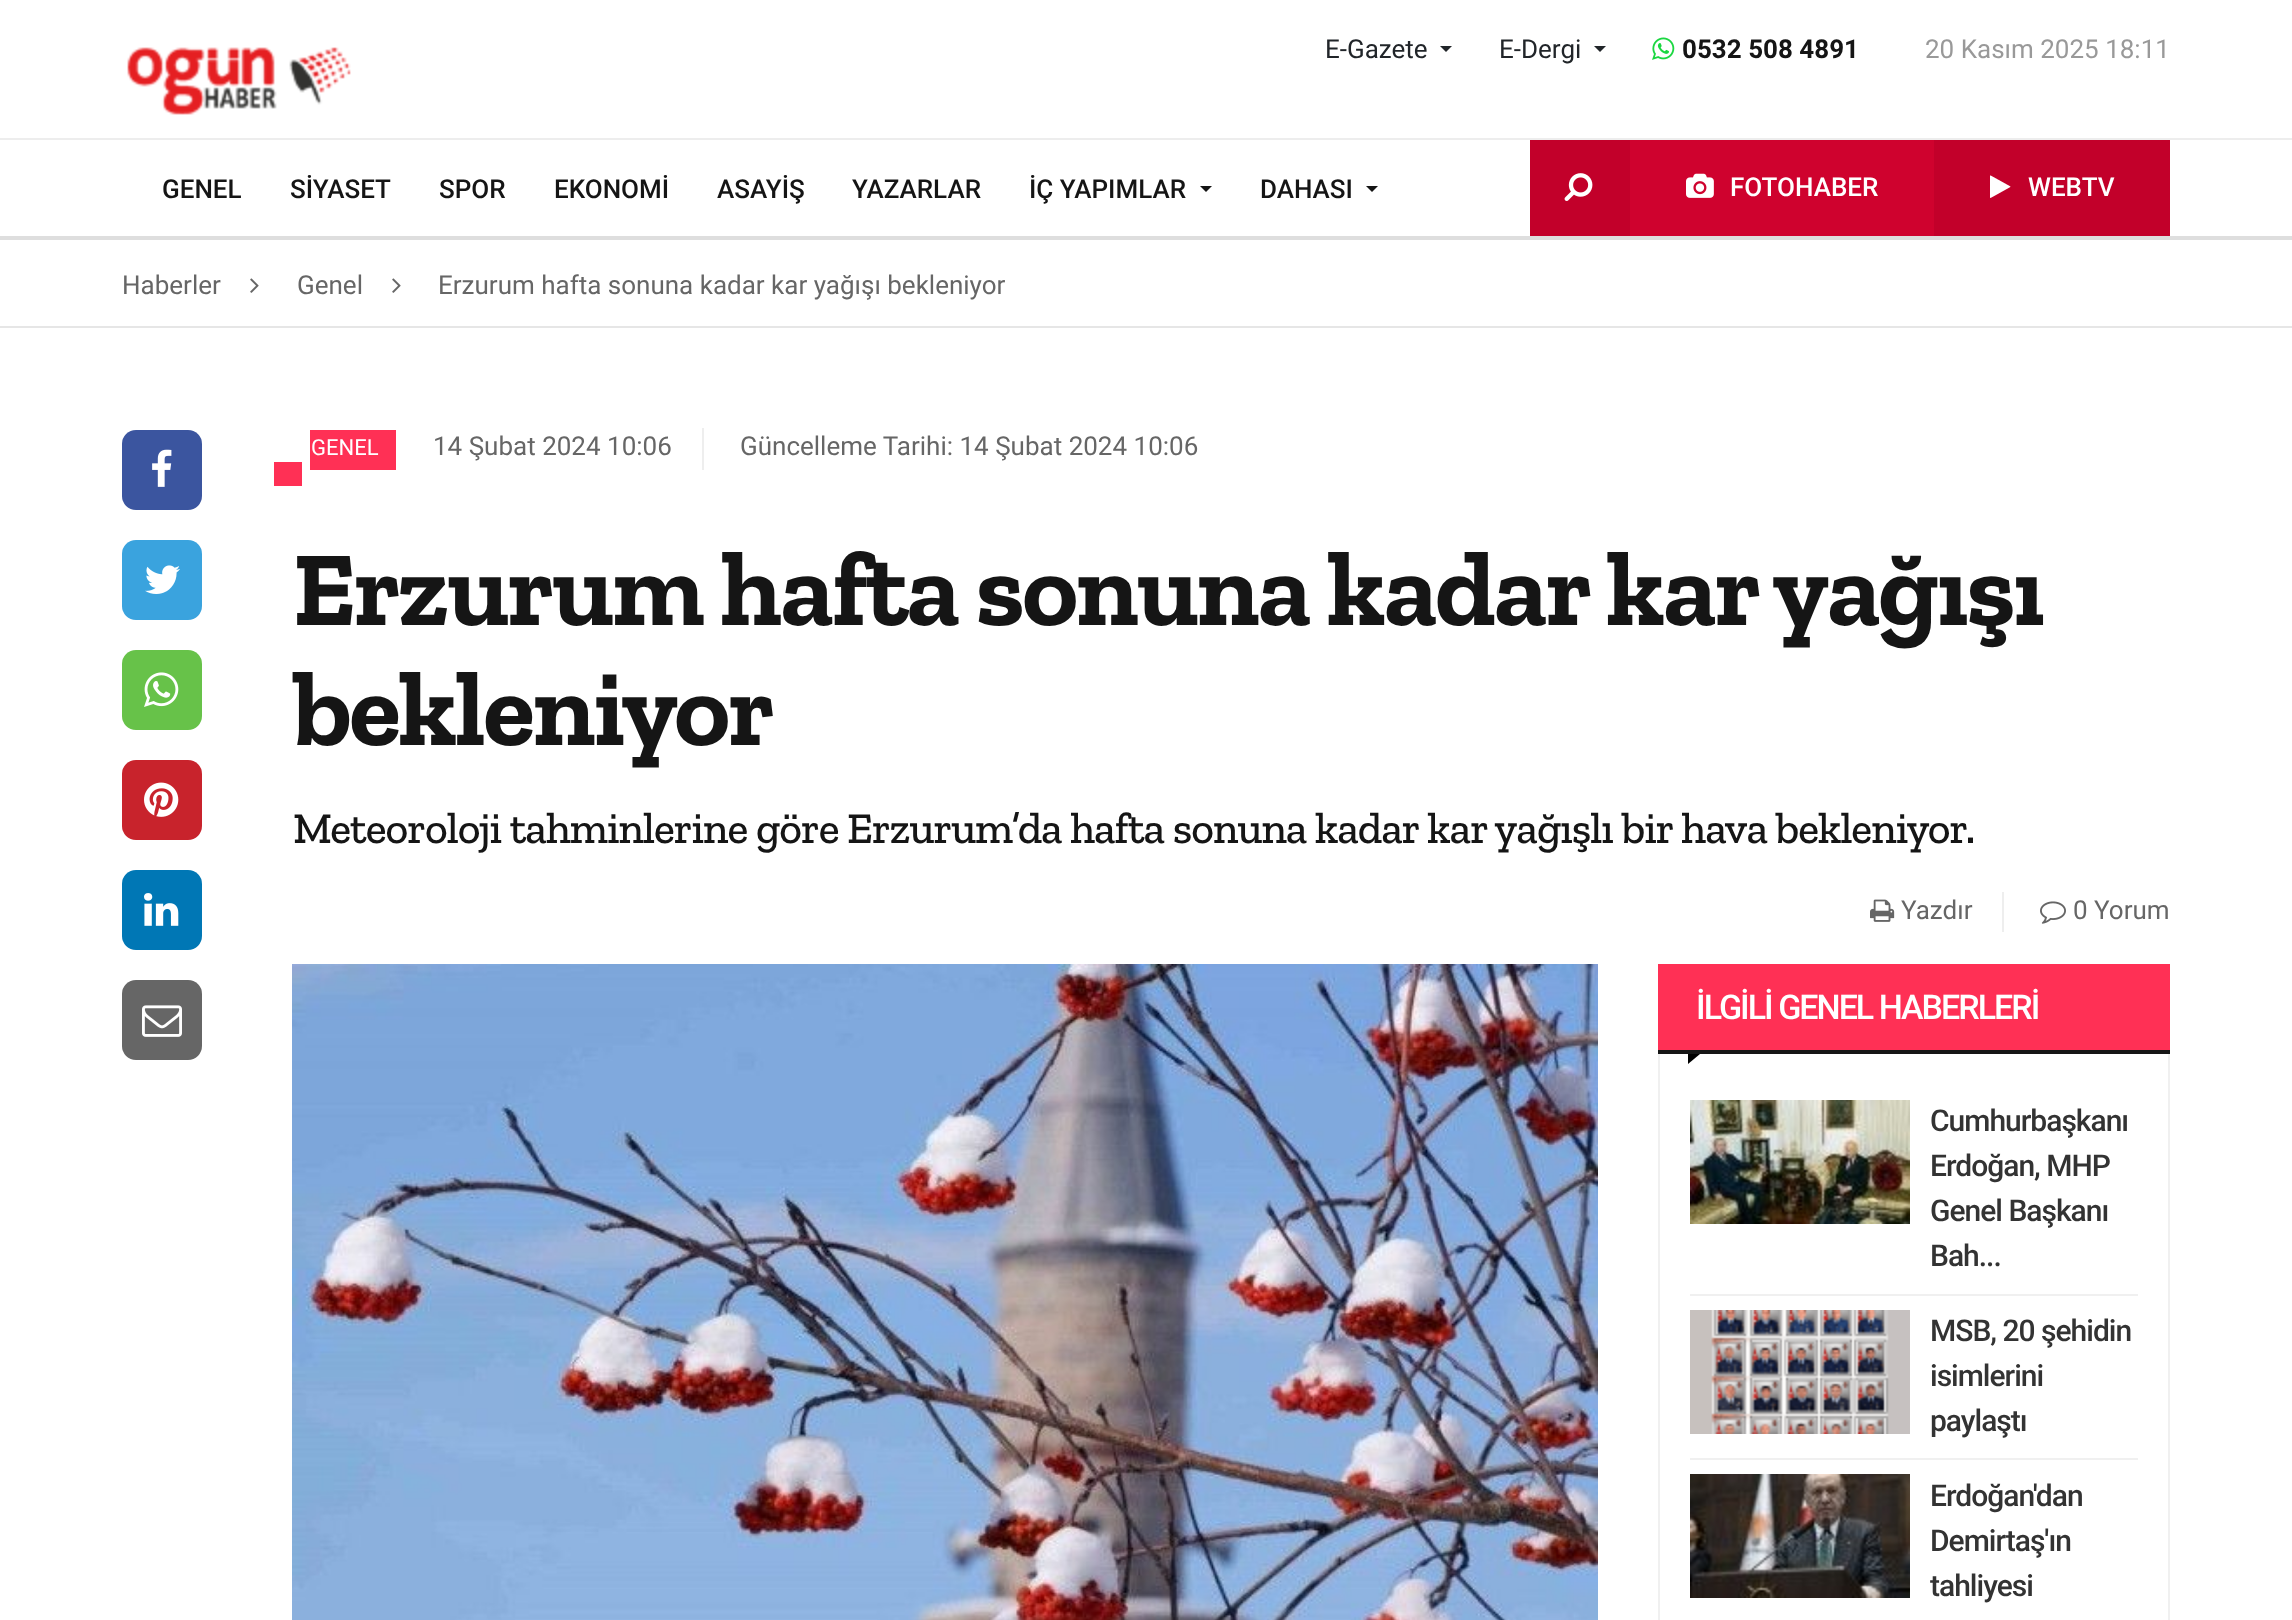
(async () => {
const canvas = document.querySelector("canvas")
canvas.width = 2292
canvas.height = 1620
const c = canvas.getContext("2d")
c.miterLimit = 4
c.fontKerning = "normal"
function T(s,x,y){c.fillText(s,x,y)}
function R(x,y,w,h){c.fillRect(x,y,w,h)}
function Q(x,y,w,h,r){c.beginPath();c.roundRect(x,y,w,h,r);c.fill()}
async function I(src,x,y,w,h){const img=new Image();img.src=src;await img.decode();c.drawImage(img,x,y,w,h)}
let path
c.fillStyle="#fff"
R(0,0,2292,1620)
c.fillStyle="#ededed"
R(0,138,2292,2)
await I("1.png",127,47,224,68)
c.font="26px Roboto"
c.fillStyle="#212529"
T("E-Gazete",1325,58)
path = new Path2D("M1440 46h12l-6 6z")
c.fill(path)
T("E-Dergi",1499,58)
path = new Path2D("M1594 46h12l-6 6z")
c.fill(path)
await I("2.png",1652,37,23,23)
c.font="bold 26px Roboto"
c.fillStyle="#151515"
T("0532 508 4891",1682,58)
c.font="26px Roboto"
c.fillStyle="#999"
T("20 Kasım 2025 18:11",1925,58)
c.fillStyle="#dedede"
R(0,236,2292,4)
c.font="500 26px Roboto"
c.fillStyle="#151515"
T("GENEL",162,198)
T("SİYASET",290,198)
T("SPOR",439,198)
T("EKONOMİ",554,198)
T("ASAYİŞ",717,198)
T("YAZARLAR",852,198)
T("İÇ YAPIMLAR",1029,198)
c.fillStyle="#141414"
path = new Path2D("M1200 186h12l-6 6z")
c.fill(path)
c.fillStyle="#151515"
T("DAHASI",1260,198)
c.fillStyle="#141414"
path = new Path2D("M1366 186h12l-6 6z")
c.fill(path)
c.fillStyle="#c2002a"
R(1530,140,100,96)
await I("3.png",1564,173,29,28)
c.fillStyle="#cf022e"
R(1630,140,304,96)
await I("4.png",1686,173,28,25)
c.fillStyle="#fff"
T("FOTOHABER",1730,196)
c.fillStyle="#c2002a"
R(1934,140,236,96)
await I("5.png",1990,175,21,23)
c.fillStyle="#fff"
T("WEBTV",2028,196)
c.fillStyle="#e6e6e6"
R(0,326,2292,2)
c.font="26px Roboto"
c.fillStyle="#666"
T("Haberler",122,294)
await I("6.png",250,278,9,15)
T("Genel",297,294)
await I("6.png",392,278,9,15)
T("Erzurum hafta sonuna kadar kar yağışı bekleniyor",438,294)
c.fillStyle="#3b559f"
Q(122,430,80,80,14)
await I("7.png",152,449,20,38)
c.fillStyle="#3aa3de"
Q(122,540,80,80,14)
await I("8.png",145,565,35,29)
c.fillStyle="#67c249"
Q(122,650,80,80,14)
await I("9.png",144,672,35,35)
c.fillStyle="#c8232c"
Q(122,760,80,80,14)
await I("10.png",144,782,35,35)
c.fillStyle="#0077b5"
Q(122,870,80,80,14)
await I("11.png",144,893,35,33)
c.fillStyle="#666"
Q(122,980,80,80,14)
await I("12.png",142,1005,40,32)
c.fillStyle="#eee"
R(702,428,2,42)
c.fillStyle="#ff3055"
R(310,430,86,40)
c.font="22px Roboto"
c.fillStyle="#fff"
T("GENEL",311,455)
c.fillStyle="#ff3055"
R(274,462,28,24)
c.font="26px Roboto"
c.fillStyle="#666"
T("14 Şubat 2024 10:06",433,455)
T("Güncelleme Tarihi: 14 Şubat 2024 10:06",740,455)
c.letterSpacing="-2px"
c.font="bold 106px Zilla Slab"
c.fillStyle="#151515"
T("Erzurum hafta sonuna kadar kar yağışı",293,625)
T("bekleniyor",293,745)
c.letterSpacing="-1px"
c.font="500 44px Zilla Slab"
T("Meteoroloji tahminlerine göre Erzurum’da hafta sonuna kadar kar yağışlı bir hava bekleniyor.",293,843)
c.fillStyle="#eee"
R(2002,892,2,40)
await I("13.png",1870,899,25,23)
c.letterSpacing="0px"
c.font="26px Roboto"
c.fillStyle="#666"
T("Yazdır",1901,919)
await I("14.png",2040,901,26,23)
T("0 Yorum",2073,919)
await I("15.png",292,964,1306,656)
c.fillStyle="#ff3055"
R(1658,964,512,86)
c.fillStyle="#161616"
R(1658,1050,512,4)
c.letterSpacing="-2px"
c.font="500 34px Roboto"
c.fillStyle="#fff"
T("İLGİLİ GENEL HABERLERİ",1696,1019)
c.fillStyle="#000"
path = new Path2D("M1688 1054h12l-12 10z")
c.fill(path)
c.fillStyle="#f0f0f0"
R(2168,1054,2,566)
R(1658,1054,2,566)
R(1690,1294,448,2)
await I("16.png",1690,1100,220,124)
c.letterSpacing="-1px"
c.font="500 30px Roboto"
c.fillStyle="#333"
T("Cumhurbaşkanı",1930,1131)
T("Erdoğan, MHP",1930,1176)
T("Genel Başkanı",1930,1221)
T("Bah...",1930,1266)
c.fillStyle="#f0f0f0"
R(1690,1458,448,2)
await I("17.png",1690,1310,220,124)
c.fillStyle="#333"
T("MSB, 20 şehidin",1930,1341)
T("isimlerini",1930,1386)
T("paylaştı",1930,1431)
await I("18.png",1690,1474,220,124)
T("Erdoğan'dan",1930,1506)
T("Demirtaş'ın",1930,1551)
T("tahliyesi",1930,1596)
})()
